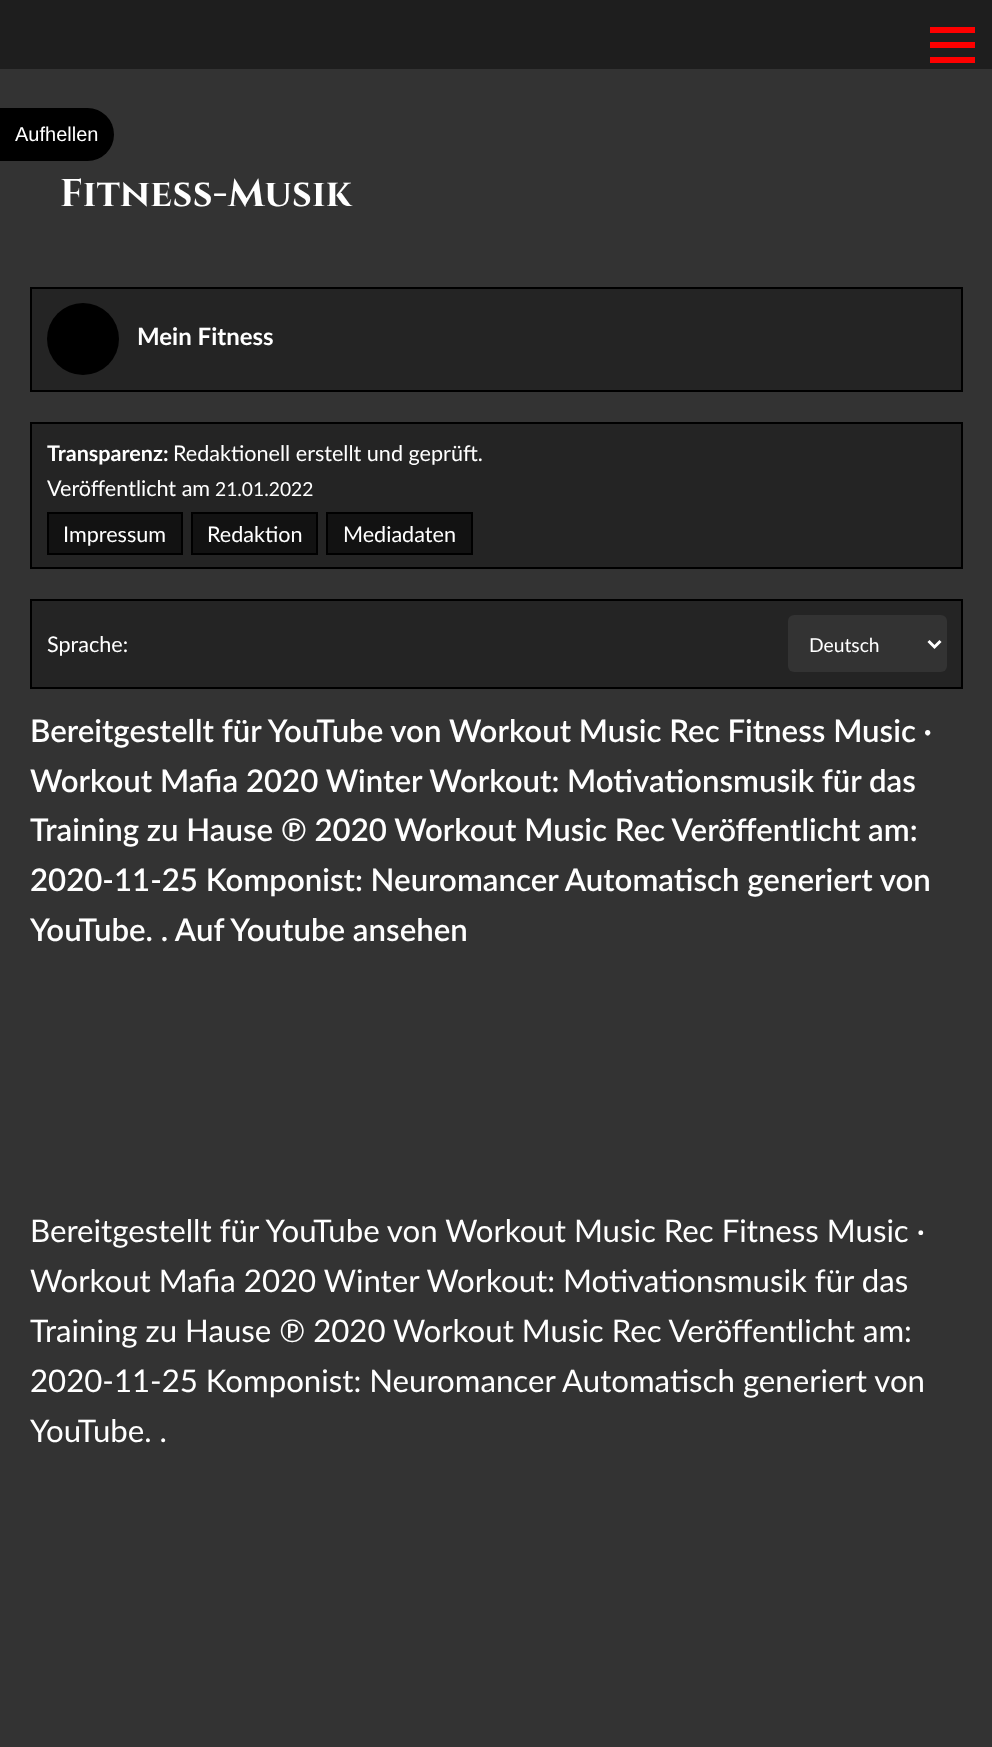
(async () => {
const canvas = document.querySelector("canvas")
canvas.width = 992
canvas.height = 1747
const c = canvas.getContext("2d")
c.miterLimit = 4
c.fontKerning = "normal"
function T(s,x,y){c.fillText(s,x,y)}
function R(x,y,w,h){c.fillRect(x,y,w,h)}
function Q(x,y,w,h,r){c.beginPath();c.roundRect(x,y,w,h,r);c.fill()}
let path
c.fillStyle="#333"
R(0,0,992,1747)
c.fillStyle="#1e1e1e"
R(0,0,992,69)
c.fillStyle="#fe0000"
R(930,27,45,6)
R(930,42,45,6)
R(930,57,45,6)
c.fillStyle="#000"
c.beginPath()
c.roundRect(0,108,114,53,[0,26.5,26.5,0])
c.fill()
c.font="20px Liberation Sans"
c.fillStyle="#fff"
T("Aufhellen",15,141)
c.letterSpacing="0.4px"
c.font="bold 38.5px Cinzel"
T("Fitness-Musik",60,206)
c.fillStyle="#242424"
c.beginPath()
c.rect(31,288,931,103)
c.fill()
c.strokeStyle="#000"
c.lineWidth=2
c.stroke()
c.fillStyle="#000"
c.beginPath()
c.arc(83,339,36,0,7)
c.fill()
c.letterSpacing="0px"
c.font="bold 24px Lato"
c.fillStyle="#fff"
T("Mein Fitness",137,345)
c.fillStyle="#242424"
c.beginPath()
c.rect(31,423,931,145)
c.fill()
c.stroke()
c.font="bold 21.6px Lato"
c.fillStyle="#fff"
T("Transparenz:",47,461)
c.font="21.6px Lato"
T("Redaktionell erstellt und geprüft.",173,461)
T("Veröffentlicht am",47,496)
c.font="19.25px Lato"
T("21.01.2022",215,496)
c.fillStyle="#121212"
c.beginPath()
c.rect(48,513,134,41)
c.fill()
c.stroke()
c.font="21.6px Lato"
c.fillStyle="#fff"
T("Impressum",63,542)
c.fillStyle="#121212"
c.beginPath()
c.rect(192,513,125,41)
c.fill()
c.stroke()
c.fillStyle="#fff"
T("Redaktion",207,542)
c.fillStyle="#121212"
c.beginPath()
c.rect(327,513,145,41)
c.fill()
c.stroke()
c.fillStyle="#fff"
T("Mediadaten",343,542)
c.fillStyle="#242424"
c.beginPath()
c.rect(31,600,931,88)
c.fill()
c.stroke()
c.fillStyle="#fff"
T("Sprache:",47,652)
c.fillStyle="#333"
Q(788,615,159,57,6)
path = new Path2D("M928.5 641l6 6l6-6")
c.strokeStyle="#fff"
c.lineWidth=3
c.stroke(path)
c.font="19.25px Lato"
c.fillStyle="#fff"
T("Deutsch",809,652)
c.font="600 31.2px Lato"
T("Bereitgestellt für YouTube von Workout Music Rec Fitness Music ·",30,742)
T("Workout Mafia 2020 Winter Workout: Motivationsmusik für das",30,792)
T("Training zu Hause ℗ 2020 Workout Music Rec Veröffentlicht am:",30,841)
T("2020-11-25 Komponist: Neuromancer Automatisch generiert von",30,891)
T("YouTube. . Auf Youtube ansehen",30,941)
c.font="31.2px Lato"
T("Bereitgestellt für YouTube von Workout Music Rec Fitness Music ·",30,1242)
T("Workout Mafia 2020 Winter Workout: Motivationsmusik für das",30,1292)
T("Training zu Hause ℗ 2020 Workout Music Rec Veröffentlicht am:",30,1342)
T("2020-11-25 Komponist: Neuromancer Automatisch generiert von",30,1392)
T("YouTube. .",30,1442)
})()
